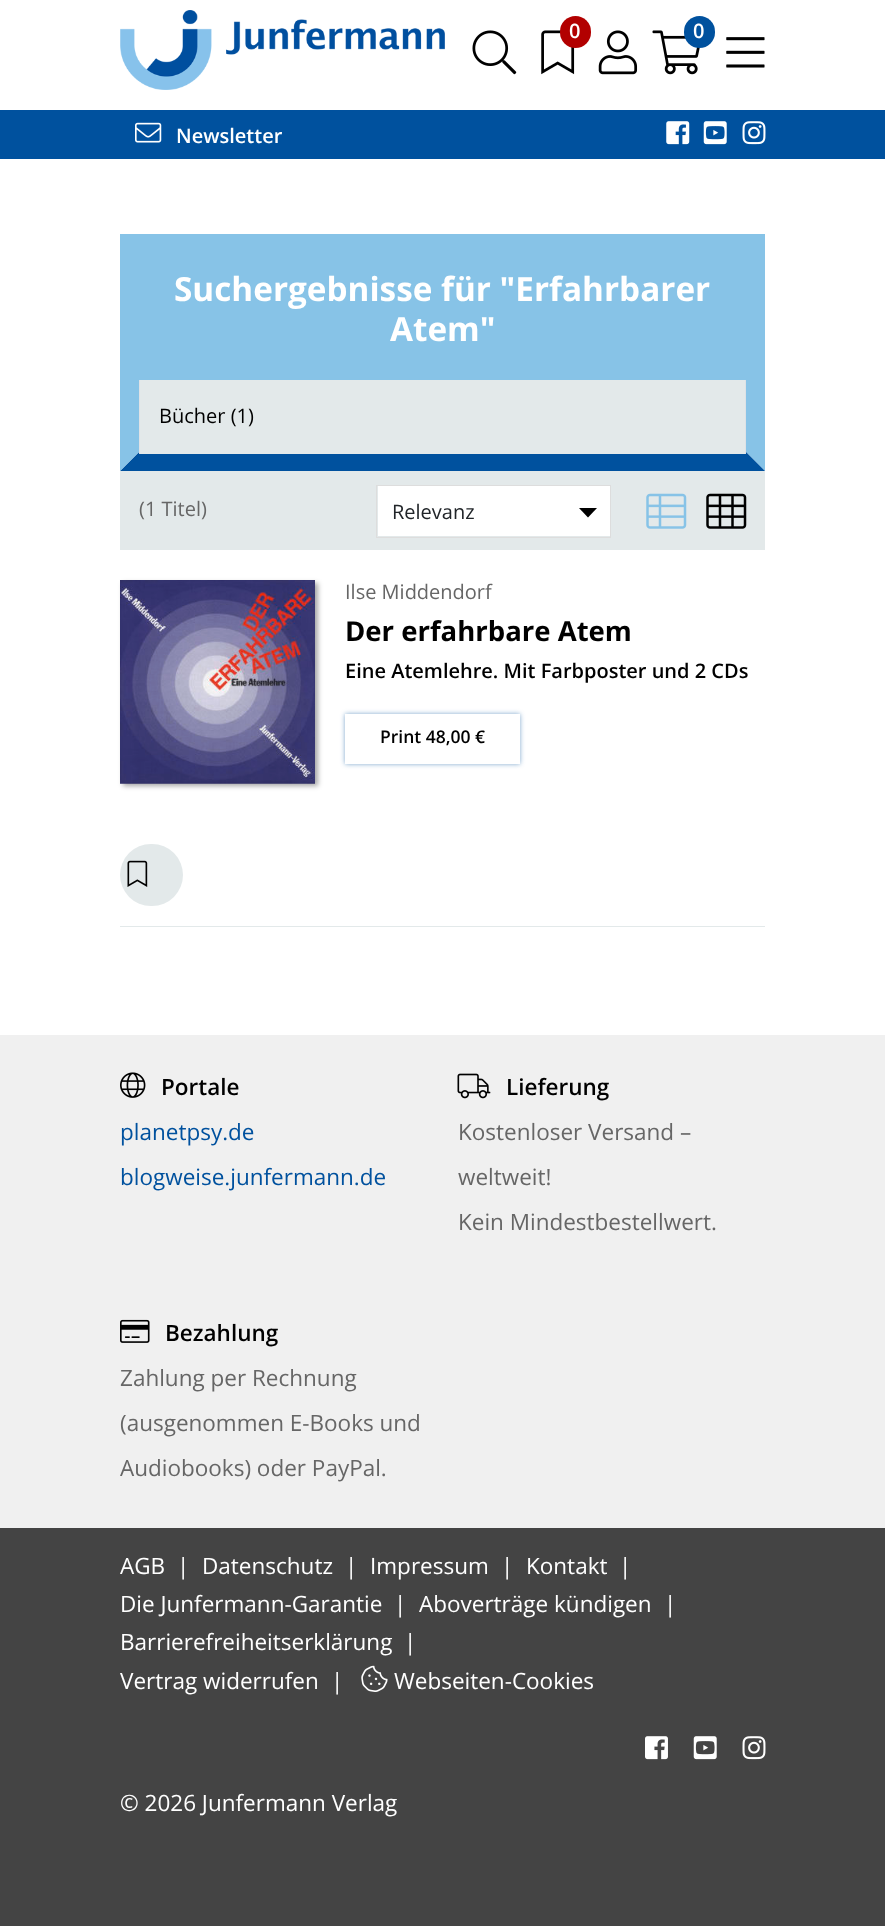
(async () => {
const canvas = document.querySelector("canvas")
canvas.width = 885
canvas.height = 1926
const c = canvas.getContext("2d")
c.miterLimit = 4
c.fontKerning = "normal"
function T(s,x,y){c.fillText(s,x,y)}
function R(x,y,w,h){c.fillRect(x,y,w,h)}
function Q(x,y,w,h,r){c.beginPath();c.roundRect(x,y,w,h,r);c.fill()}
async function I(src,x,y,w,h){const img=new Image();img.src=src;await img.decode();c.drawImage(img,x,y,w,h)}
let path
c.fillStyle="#fff"
R(0,0,885,1926)
await I("1.png",120,10,325,80)
await I("2.png",472,30,45,45)
await I("3.png",541,30,34,45)
c.fillStyle="#b20000"
Q(560,16,31,32,15.5)
c.font="600 20px Open Sans"
c.fillStyle="#fff"
T("0",569,38)
await I("4.png",598,30,40,45)
await I("5.png",652,30,48,45)
c.fillStyle="#00519e"
Q(684,16,31,32,15.5)
c.fillStyle="#fff"
T("0",693,38)
await I("6.png",726,37,39,31)
c.fillStyle="#00519e"
R(0,110,885,49)
await I("7.png",135,122,27,21)
c.fillStyle="#fff"
T("Newsletter",176,143)
await I("8.png",666,121,24,24)
await I("9.png",703,121,24,24)
await I("10.png",742,121,24,24)
c.fillStyle="#87c3e7"
R(120,234,645,146)
c.font="bold 33.3px Open Sans"
c.fillStyle="#fff"
T("Suchergebnisse für \"Erfahrbarer",174,301)
T("Atem\"",390,341)
c.fillStyle="#87c3e7"
path = new Path2D("M765 380v91l-19-19v-72z")
c.fill(path)
c.fillStyle="#00519e"
path = new Path2D("M765 471h-645l19-19h607z")
c.fill(path)
c.fillStyle="#87c3e7"
path = new Path2D("M120 471v-91h19v72z")
c.fill(path)
c.fillStyle="#e3e9ea"
R(140,380,605,74)
c.fillStyle="#dee2e6"
R(745,380,1,74)
R(139,380,1,74)
c.font="20px Open Sans"
c.fillStyle="#000"
T("Bücher (1)",159,423)
c.fillStyle="#e3e9ea"
R(120,471,645,79)
c.fillStyle="#666"
T("(1 Titel)",139,516)
c.fillStyle="#fff"
R(378,486,232,50)
c.fillStyle="#000"
path = new Path2D("M579 508l9 9.5l9-9.5z")
c.fill(path)
c.strokeStyle="#ddd"
c.strokeRect(376.5,485.5,234,52)
c.fillStyle="#212529"
T("Relevanz",392,519)
await I("11.png",646,493,41,36)
await I("12.png",706,493,41,36)
c.fillStyle="#00000059"
c.filter="blur(2.5px)"
c.beginPath()
c.rect(123,583,195,203)
c.fill()
c.filter="none"
await I("13.png",120,580,195,204)
c.fillStyle="#e3e9ea"
Q(120,844,63,62,31)
await I("14.png",127,860,21,27)
c.fillStyle="#666"
T("Ilse Middendorf",345,599)
c.font="bold 27.5px Open Sans"
c.fillStyle="#000"
T("Der erfahrbare Atem",345,641)
c.font="600 20px Open Sans"
T("Eine Atemlehre. Mit Farbposter und 2 CDs",345,678)
c.save()
path = new Path2D("M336 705h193v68h-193zm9 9h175v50h-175z")
c.clip(path,"evenodd")
c.fillStyle="#00519e80"
c.filter="blur(2.5px)"
c.beginPath()
c.rect(345,714,175,50)
c.fill()
c.filter="none"
c.restore()
c.font="600 17.5px Open Sans"
T("Print 48,00 €",380,743)
c.fillStyle="#e3e9ea"
R(120,926,645,1)
c.fillStyle="#f0f0f0"
R(0,1035,885,493)
await I("15.png",120,1072,26,26)
c.font="600 22.5px Open Sans"
c.fillStyle="#000"
T("Portale",161,1095)
c.font="22.5px Open Sans"
c.fillStyle="#00519e"
T("planetpsy.de",120,1140)
T("blogweise.junfermann.de",120,1185)
await I("16.png",457,1073,34,26)
c.font="600 22.5px Open Sans"
c.fillStyle="#000"
T("Lieferung",506,1095)
c.font="22.5px Open Sans"
c.fillStyle="#666"
T("Kostenloser Versand –",458,1140)
T("weltweit!",458,1185)
T("Kein Mindestbestellwert.",458,1230)
await I("17.png",120,1319,30,24)
c.font="600 22.5px Open Sans"
c.fillStyle="#000"
T("Bezahlung",165,1341)
c.font="22.5px Open Sans"
c.fillStyle="#666"
T("Zahlung per Rechnung",120,1386)
T("(ausgenommen E-Books und",120,1431)
T("Audiobooks) oder PayPal.",120,1476)
c.fillStyle="#444"
R(0,1528,885,398)
c.fillStyle="#fff"
T("AGB",120,1574)
T("|",177,1574)
T("Datenschutz",202,1574)
T("|",345,1574)
T("Impressum",370,1574)
T("|",501,1574)
T("Kontakt",526,1574)
T("|",619,1574)
T("Die Junfermann-Garantie",120,1612)
T("|",394,1612)
T("Aboverträge kündigen",419,1612)
T("|",664,1612)
T("Barrierefreiheitserklärung",120,1650)
T("|",404,1650)
T("Vertrag widerrufen",120,1689)
T("|",331,1689)
await I("18.png",361,1665,27,27)
T("Webseiten-Cookies",394,1689)
await I("19.png",645,1736,23,24)
await I("20.png",693,1736,24,24)
await I("21.png",742,1736,24,24)
T("© 2026 Junfermann Verlag",120,1811)
})()
